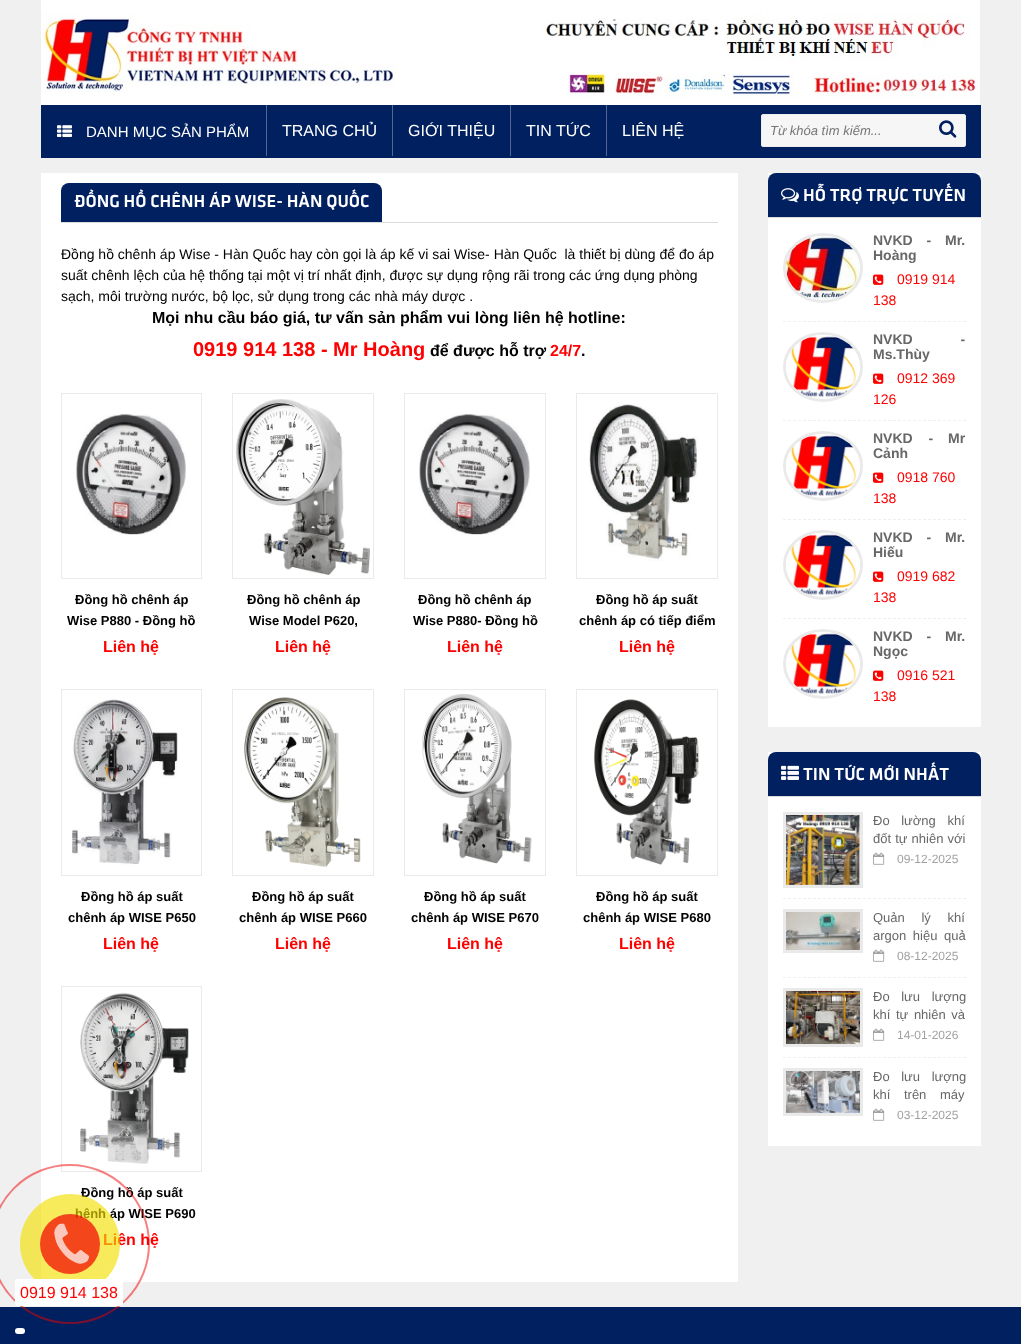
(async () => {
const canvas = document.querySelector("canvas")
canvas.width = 1021
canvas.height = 1344
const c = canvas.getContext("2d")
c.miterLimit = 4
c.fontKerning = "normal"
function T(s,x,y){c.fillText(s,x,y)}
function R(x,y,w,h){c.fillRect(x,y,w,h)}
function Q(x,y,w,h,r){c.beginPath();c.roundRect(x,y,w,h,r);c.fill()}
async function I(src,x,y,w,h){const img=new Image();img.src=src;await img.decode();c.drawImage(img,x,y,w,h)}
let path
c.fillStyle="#f0f0f0"
R(0,0,1021,1344)
await I("1.png",41,0,939,105)
c.fillStyle="#012060"
R(41,105,940,53)
await I("2.png",57,125,15,12)
c.font="15px Liberation Sans"
c.fillStyle="#fff"
T("DANH MỤC SẢN PHẨM",86,137)
c.fillStyle="#526793"
R(266,105,1,51)
c.font="16px Liberation Sans"
c.fillStyle="#fff"
T("TRANG CHỦ",282,136)
c.fillStyle="#526793"
R(392,105,1,51)
c.fillStyle="#fff"
T("GIỚI THIỆU",408,136)
c.fillStyle="#526793"
R(510,105,1,51)
c.fillStyle="#fff"
T("TIN TỨC",526,136)
c.fillStyle="#526793"
R(606,105,1,51)
c.fillStyle="#fff"
T("LIÊN HỆ",622,136)
c.fillStyle="#f7f6f6"
c.beginPath()
c.roundRect(761.5,114.5,204,32,1.5)
c.fill()
c.strokeStyle="#ededed"
c.stroke()
c.font="italic 13px Liberation Sans"
c.fillStyle="#757575"
T("Từ khóa tìm kiếm...",770,135)
await I("3.png",939,120,18,18)
c.fillStyle="#fff"
R(41,173,697,1109)
c.fillStyle="#dbdbdb"
R(61,222,657,1)
c.fillStyle="#012060"
c.beginPath()
c.roundRect(61,183,321,39,[8,8,0,0])
c.fill()
c.font="18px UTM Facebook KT"
c.fillStyle="#fff"
T("ĐỒNG HỒ CHÊNH ÁP WISE- HÀN QUỐC",74,207)
c.font="14px Liberation Sans"
c.fillStyle="#000"
T("Đồng hồ chênh áp Wise - Hàn Quốc hay còn gọi là áp kế vi sai Wise- Hàn Quốc  là thiết bị dùng để đo áp",61,259)
T("suất chênh lệch của hệ thống tại một vị trí nhất định, được sự dụng rộng rãi trong các ứng dụng phòng",61,280)
T("sạch, môi trường nước, bộ lọc, sử dụng trong các nhà máy dược .",61,301)
c.font="bold 16px Liberation Sans"
T("Mọi nhu cầu báo giá, tư vấn sản phẩm vui lòng liên hệ hotline:",152,323)
c.font="bold 20px Liberation Sans"
c.fillStyle="#f00"
T("0919 914 138 - Mr Hoàng",193,356)
c.font="bold 16px Liberation Sans"
c.fillStyle="#000"
T("để được hỗ trợ",430,356)
c.fillStyle="#f00"
T("24/7",550,356)
c.fillStyle="#000"
T(".",581,356)
c.strokeStyle="#eaeaea"
c.strokeRect(61.5,393.5,140,185)
await I("4.png",76,414,110,121)
c.font="bold 13px Liberation Sans"
T("Đồng hồ chênh áp",75,604)
T("Wise P880 - Đồng hồ",67,625)
c.font="bold 16px Liberation Sans"
c.fillStyle="#f00"
T("Liên hệ",103,652)
c.strokeRect(232.5,393.5,141,185)
await I("5.png",236,399,134,176)
c.font="bold 13px Liberation Sans"
c.fillStyle="#000"
T("Đồng hồ chênh áp",247,604)
T("Wise Model P620,",249,625)
c.font="bold 16px Liberation Sans"
c.fillStyle="#f00"
T("Liên hệ",275,652)
c.strokeRect(404.5,393.5,141,185)
await I("6.png",419,414,111,121)
c.font="bold 13px Liberation Sans"
c.fillStyle="#000"
T("Đồng hồ chênh áp",418,604)
T("Wise P880- Đồng hồ",413,625)
c.font="bold 16px Liberation Sans"
c.fillStyle="#f00"
T("Liên hệ",447,652)
c.strokeRect(576.5,393.5,141,185)
await I("7.png",589,404,109,157)
c.font="bold 13px Liberation Sans"
c.fillStyle="#000"
T("Đồng hồ áp suất",596,604)
T("chênh áp có tiếp điểm",579,625)
c.font="bold 16px Liberation Sans"
c.fillStyle="#f00"
T("Liên hệ",619,652)
c.strokeRect(61.5,689.5,140,186)
await I("8.png",72,699,106,166)
c.font="bold 13px Liberation Sans"
c.fillStyle="#000"
T("Đồng hồ áp suất",81,901)
T("chênh áp WISE P650",68,922)
c.font="bold 16px Liberation Sans"
c.fillStyle="#f00"
T("Liên hệ",103,949)
c.strokeRect(232.5,689.5,141,186)
await I("9.png",244,697,117,170)
c.font="bold 13px Liberation Sans"
c.fillStyle="#000"
T("Đồng hồ áp suất",252,901)
T("chênh áp WISE P660",239,922)
c.font="bold 16px Liberation Sans"
c.fillStyle="#f00"
T("Liên hệ",275,949)
c.strokeRect(404.5,689.5,141,186)
await I("10.png",422,694,110,170)
c.font="bold 13px Liberation Sans"
c.fillStyle="#000"
T("Đồng hồ áp suất",424,901)
T("chênh áp WISE P670",411,922)
c.font="bold 16px Liberation Sans"
c.fillStyle="#f00"
T("Liên hệ",447,949)
c.strokeRect(576.5,689.5,141,186)
await I("11.png",594,699,105,166)
c.font="bold 13px Liberation Sans"
c.fillStyle="#000"
T("Đồng hồ áp suất",596,901)
T("chênh áp WISE P680",583,922)
c.font="bold 16px Liberation Sans"
c.fillStyle="#f00"
T("Liên hệ",619,949)
c.strokeRect(61.5,986.5,140,185)
await I("12.png",80,992,109,172)
c.font="bold 13px Liberation Sans"
c.fillStyle="#000"
T("Đồng hồ áp suất",81,1197)
T("hênh áp WISE P690",75,1218)
c.font="bold 16px Liberation Sans"
c.fillStyle="#f00"
T("Liên hệ",103,1245)
c.fillStyle="#fff"
R(768,173,213,554)
c.fillStyle="#012060"
c.beginPath()
c.roundRect(768,173,213,45,[8,8,0,0])
c.fill()
c.fillStyle="#dbdbdb"
R(768,217,213,1)
await I("13.png",781,188,18,15)
c.font="18px UTM Facebook KT"
c.fillStyle="#fff"
T("HỖ TRỢ TRỰC TUYẾN",803,201)
path = new Path2D("M783 321.5h183")
c.strokeStyle="#efefef"
c.setLineDash([3,2])
c.stroke(path)
path = new Path2D("M823 234.5c21.5 0 38.5 15 38.5 33.5c0 18.5-17 33.5-38.5 33.5c-21.5 0-38.5-15-38.5-33.5c0-18.5 17-33.5 38.5-33.5z")
c.strokeStyle="#eaeaea"
c.lineWidth=3
c.setLineDash([])
c.stroke(path)
await I("14.png",786,236,74,64)
c.wordSpacing="10px"
c.font="bold 14px Liberation Sans"
c.fillStyle="#676767"
T("NVKD -",873,245)
c.wordSpacing="0px"
T("Mr.",945,245)
T("Hoàng",873,260)
await I("15.png",873,274,11,11)
c.font="14px Liberation Sans"
c.fillStyle="#f00"
T("0919 914",897,284)
T("138",873,305)
path = new Path2D("M783 420.5h183")
c.strokeStyle="#efefef"
c.lineWidth=1
c.setLineDash([3,2])
c.stroke(path)
path = new Path2D("M823 333.5c21.5 0 38.5 15 38.5 33.5c0 18.5-17 33.5-38.5 33.5c-21.5 0-38.5-15-38.5-33.5c0-18.5 17-33.5 38.5-33.5z")
c.strokeStyle="#eaeaea"
c.lineWidth=3
c.setLineDash([])
c.stroke(path)
await I("16.png",786,335,74,62)
c.wordSpacing="44px"
c.font="bold 14px Liberation Sans"
c.fillStyle="#676767"
T("NVKD -",873,344)
c.wordSpacing="0px"
T("Ms.Thùy",873,359)
await I("15.png",873,373,11,11)
c.font="14px Liberation Sans"
c.fillStyle="#f00"
T("0912 369",897,383)
T("126",873,404)
path = new Path2D("M783 519.5h183")
c.strokeStyle="#efefef"
c.lineWidth=1
c.setLineDash([3,2])
c.stroke(path)
path = new Path2D("M823 432.5c21.5 0 38.5 15 38.5 33.5c0 18.5-17 33.5-38.5 33.5c-21.5 0-38.5-15-38.5-33.5c0-18.5 17-33.5 38.5-33.5z")
c.strokeStyle="#eaeaea"
c.lineWidth=3
c.setLineDash([])
c.stroke(path)
await I("16.png",786,434,74,62)
c.wordSpacing="12px"
c.font="bold 14px Liberation Sans"
c.fillStyle="#676767"
T("NVKD -",873,443)
c.wordSpacing="0px"
T("Mr",948,443)
T("Cảnh",873,458)
await I("15.png",873,472,11,11)
c.font="14px Liberation Sans"
c.fillStyle="#f00"
T("0918 760",897,482)
T("138",873,503)
path = new Path2D("M783 618.5h183")
c.strokeStyle="#efefef"
c.lineWidth=1
c.setLineDash([3,2])
c.stroke(path)
path = new Path2D("M823 531.5c21.5 0 38.5 15 38.5 33.5c0 18.5-17 33.5-38.5 33.5c-21.5 0-38.5-15-38.5-33.5c0-18.5 17-33.5 38.5-33.5z")
c.strokeStyle="#eaeaea"
c.lineWidth=3
c.setLineDash([])
c.stroke(path)
await I("16.png",786,533,74,62)
c.wordSpacing="10px"
c.font="bold 14px Liberation Sans"
c.fillStyle="#676767"
T("NVKD -",873,542)
c.wordSpacing="0px"
T("Mr.",945,542)
T("Hiếu",873,557)
await I("15.png",873,571,11,11)
c.font="14px Liberation Sans"
c.fillStyle="#f00"
T("0919 682",897,581)
T("138",873,602)
path = new Path2D("M823 630.5c21.5 0 38.5 15 38.5 33.5c0 18.5-17 33.5-38.5 33.5c-21.5 0-38.5-15-38.5-33.5c0-18.5 17-33.5 38.5-33.5z")
c.stroke(path)
await I("16.png",786,632,74,62)
c.wordSpacing="10px"
c.font="bold 14px Liberation Sans"
c.fillStyle="#676767"
T("NVKD -",873,641)
c.wordSpacing="0px"
T("Mr.",945,641)
T("Ngọc",873,656)
await I("15.png",873,670,11,11)
c.font="14px Liberation Sans"
c.fillStyle="#f00"
T("0916 521",897,680)
T("138",873,701)
c.fillStyle="#fff"
R(768,752,213,394)
c.fillStyle="#012060"
c.beginPath()
c.roundRect(768,752,213,45,[8,8,0,0])
c.fill()
c.fillStyle="#dbdbdb"
R(768,796,213,1)
await I("17.png",781,765,18,15)
c.font="18px UTM Facebook KT"
c.fillStyle="#fff"
T("TIN TỨC MỚI NHẤT",803,780)
path = new Path2D("M783 898.5h183")
c.strokeStyle="#efefef"
c.lineWidth=1
c.setLineDash([3,2])
c.stroke(path)
c.strokeStyle="#eaeaea"
c.lineWidth=3
c.setLineDash([])
c.strokeRect(784.5,813.5,77,73)
await I("18.png",786,815,74,70)
c.wordSpacing="8px"
c.font="13px Liberation Sans"
c.fillStyle="#676767"
T("Đo lường khí",873,825)
c.wordSpacing="0.5px"
T("đốt tự nhiên với",873,843)
await I("19.png",873,852,12,13)
c.wordSpacing="0px"
c.font="12px Liberation Sans"
c.fillStyle="#a1a1a1"
T("09-12-2025",897,863)
path = new Path2D("M783 977.5h183")
c.strokeStyle="#efefef"
c.lineWidth=1
c.setLineDash([3,2])
c.stroke(path)
c.strokeStyle="#eaeaea"
c.lineWidth=3
c.setLineDash([])
c.strokeRect(784.5,910.5,77,41)
await I("20.png",786,912,74,38)
c.wordSpacing="13px"
c.font="13px Liberation Sans"
c.fillStyle="#676767"
T("Quản lý khí",873,922)
c.wordSpacing="3px"
T("argon hiệu quả",873,940)
await I("19.png",873,949,12,13)
c.wordSpacing="0px"
c.font="12px Liberation Sans"
c.fillStyle="#a1a1a1"
T("08-12-2025",897,960)
path = new Path2D("M783 1057.5h183")
c.strokeStyle="#efefef"
c.lineWidth=1
c.setLineDash([3,2])
c.stroke(path)
c.strokeStyle="#eaeaea"
c.lineWidth=3
c.setLineDash([])
c.strokeRect(784.5,989.5,77,56)
await I("21.png",786,991,74,53)
c.wordSpacing="8px"
c.font="13px Liberation Sans"
c.fillStyle="#676767"
T("Đo lưu lượng",873,1001)
c.wordSpacing="2px"
T("khí tự nhiên và",873,1019)
await I("19.png",873,1028,12,13)
c.wordSpacing="0px"
c.font="12px Liberation Sans"
c.fillStyle="#a1a1a1"
T("14-01-2026",897,1039)
c.strokeRect(784.5,1069.5,77,45)
await I("22.png",786,1071,74,42)
c.wordSpacing="8px"
c.font="13px Liberation Sans"
c.fillStyle="#676767"
T("Đo lưu lượng",873,1081)
c.wordSpacing="10px"
T("khí trên máy",873,1099)
await I("19.png",873,1108,12,13)
c.wordSpacing="0px"
c.font="12px Liberation Sans"
c.fillStyle="#a1a1a1"
T("03-12-2025",897,1119)
c.fillStyle="#012060"
R(0,1307,1021,37)
c.beginPath()
c.arc(70,1244,79,0,7)
c.strokeStyle="#f2000080"
c.lineWidth=2
c.stroke()
c.fillStyle="#f2df00a3"
c.beginPath()
c.arc(70,1244,50,0,7)
c.fill()
c.fillStyle="#f20000b3"
c.beginPath()
c.arc(70,1244,30,0,7)
c.fill()
await I("23.png",54,1223,35,41)
c.fillStyle="#fff"
Q(15,1279,108,27,3)
c.font="16px Liberation Sans"
c.fillStyle="#f00"
T("0919 914 138",20,1298)
c.fillStyle="#fff"
Q(15,1328,10,6,3)
})()
